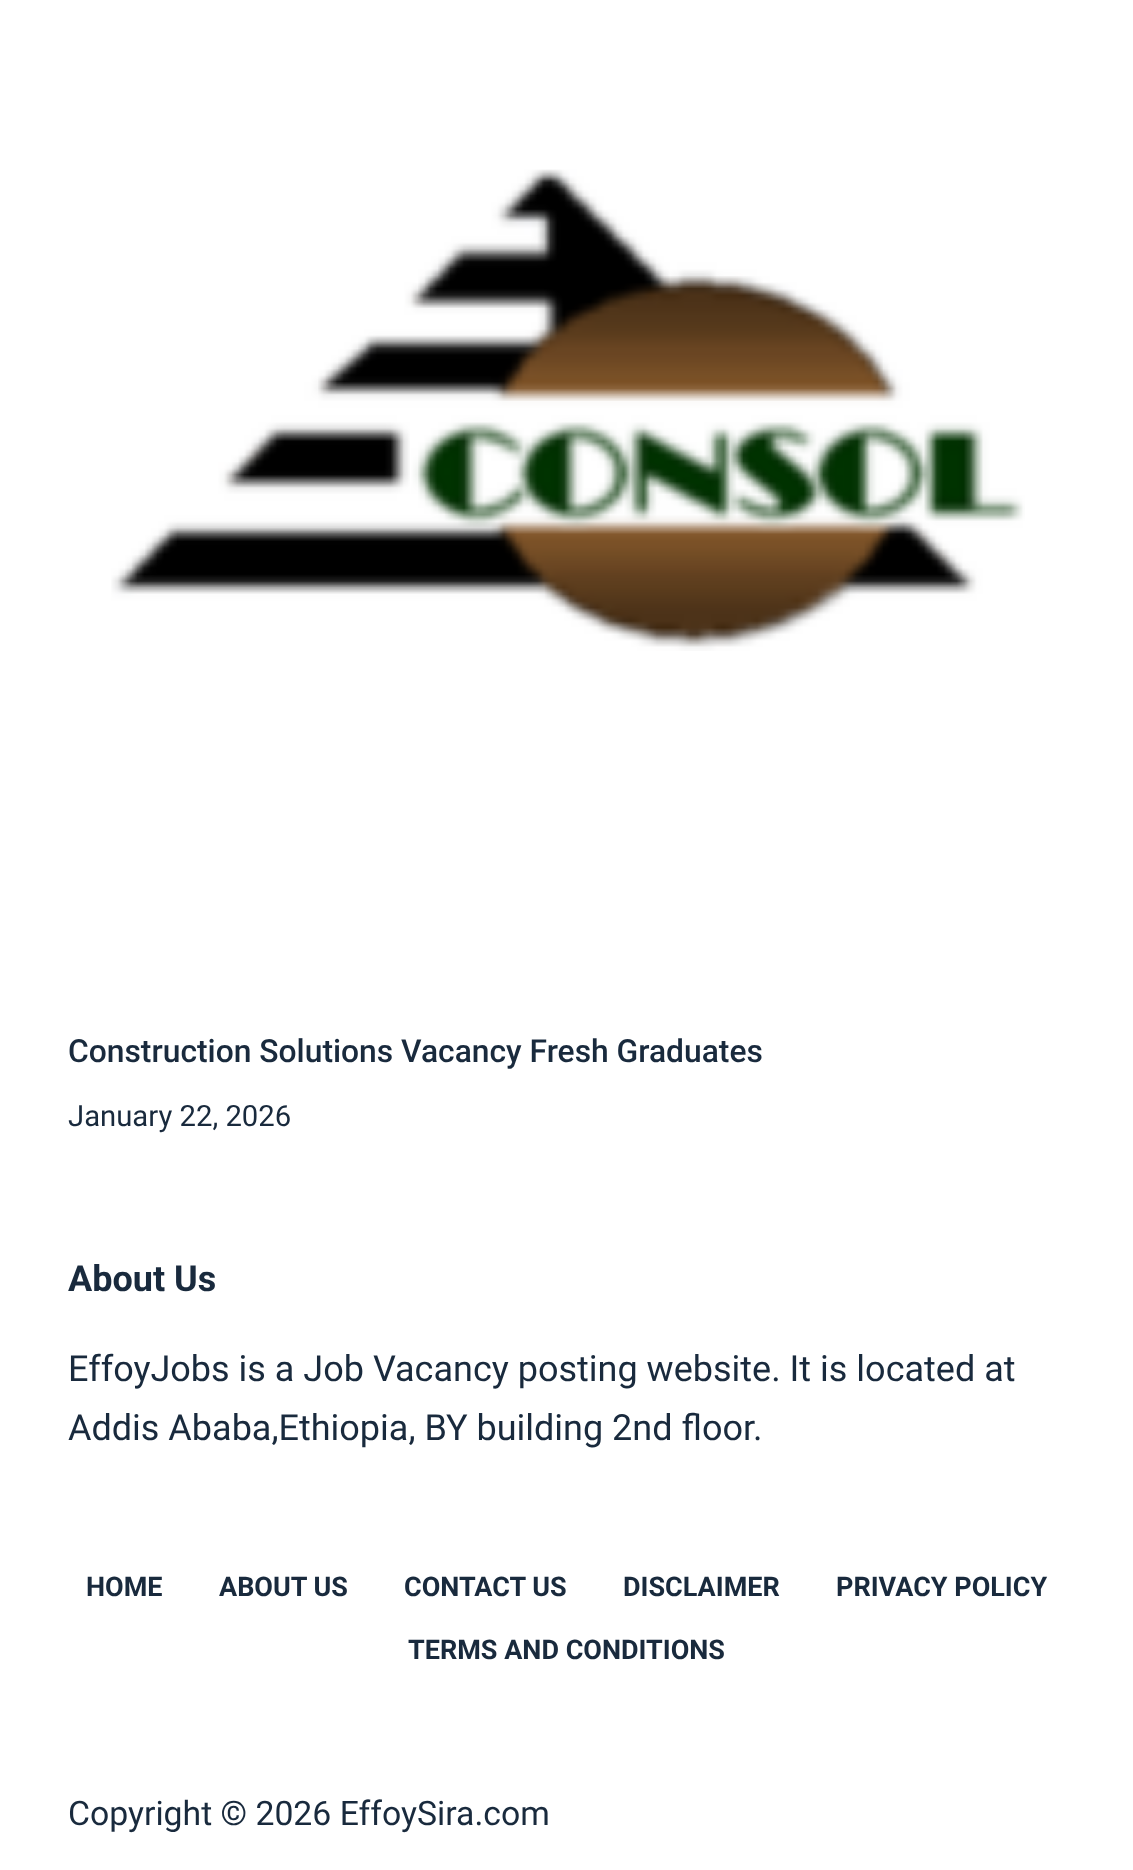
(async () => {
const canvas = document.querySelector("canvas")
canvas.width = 1133
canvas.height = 1870
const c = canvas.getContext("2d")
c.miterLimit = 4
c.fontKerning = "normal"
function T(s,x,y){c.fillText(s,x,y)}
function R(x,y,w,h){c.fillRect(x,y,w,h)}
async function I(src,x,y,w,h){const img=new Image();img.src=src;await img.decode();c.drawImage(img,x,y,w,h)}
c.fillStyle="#fff"
R(0,0,1133,1870)
await I("1.png",111,169,914,482)
c.font="500 31.8px Roboto"
c.fillStyle="#192a3d"
T("Construction Solutions Vacancy Fresh Graduates",68,1062)
c.font="29.25px Roboto"
T("January 22, 2026",68,1126)
c.font="bold 36px Roboto"
T("About Us",68,1291)
c.font="36px Roboto"
T("EffoyJobs is a Job Vacancy posting website. It is located at",68,1381)
T("Addis Ababa,Ethiopia, BY building 2nd floor.",68,1440)
c.font="bold 27px Roboto"
T("HOME",86,1596)
T("ABOUT US",219,1596)
T("CONTACT US",404,1596)
T("DISCLAIMER",623,1596)
T("PRIVACY POLICY",836,1596)
T("TERMS AND CONDITIONS",408,1659)
c.font="33.75px Roboto"
T("Copyright © 2026 EffoySira.com",68,1825)
})()
